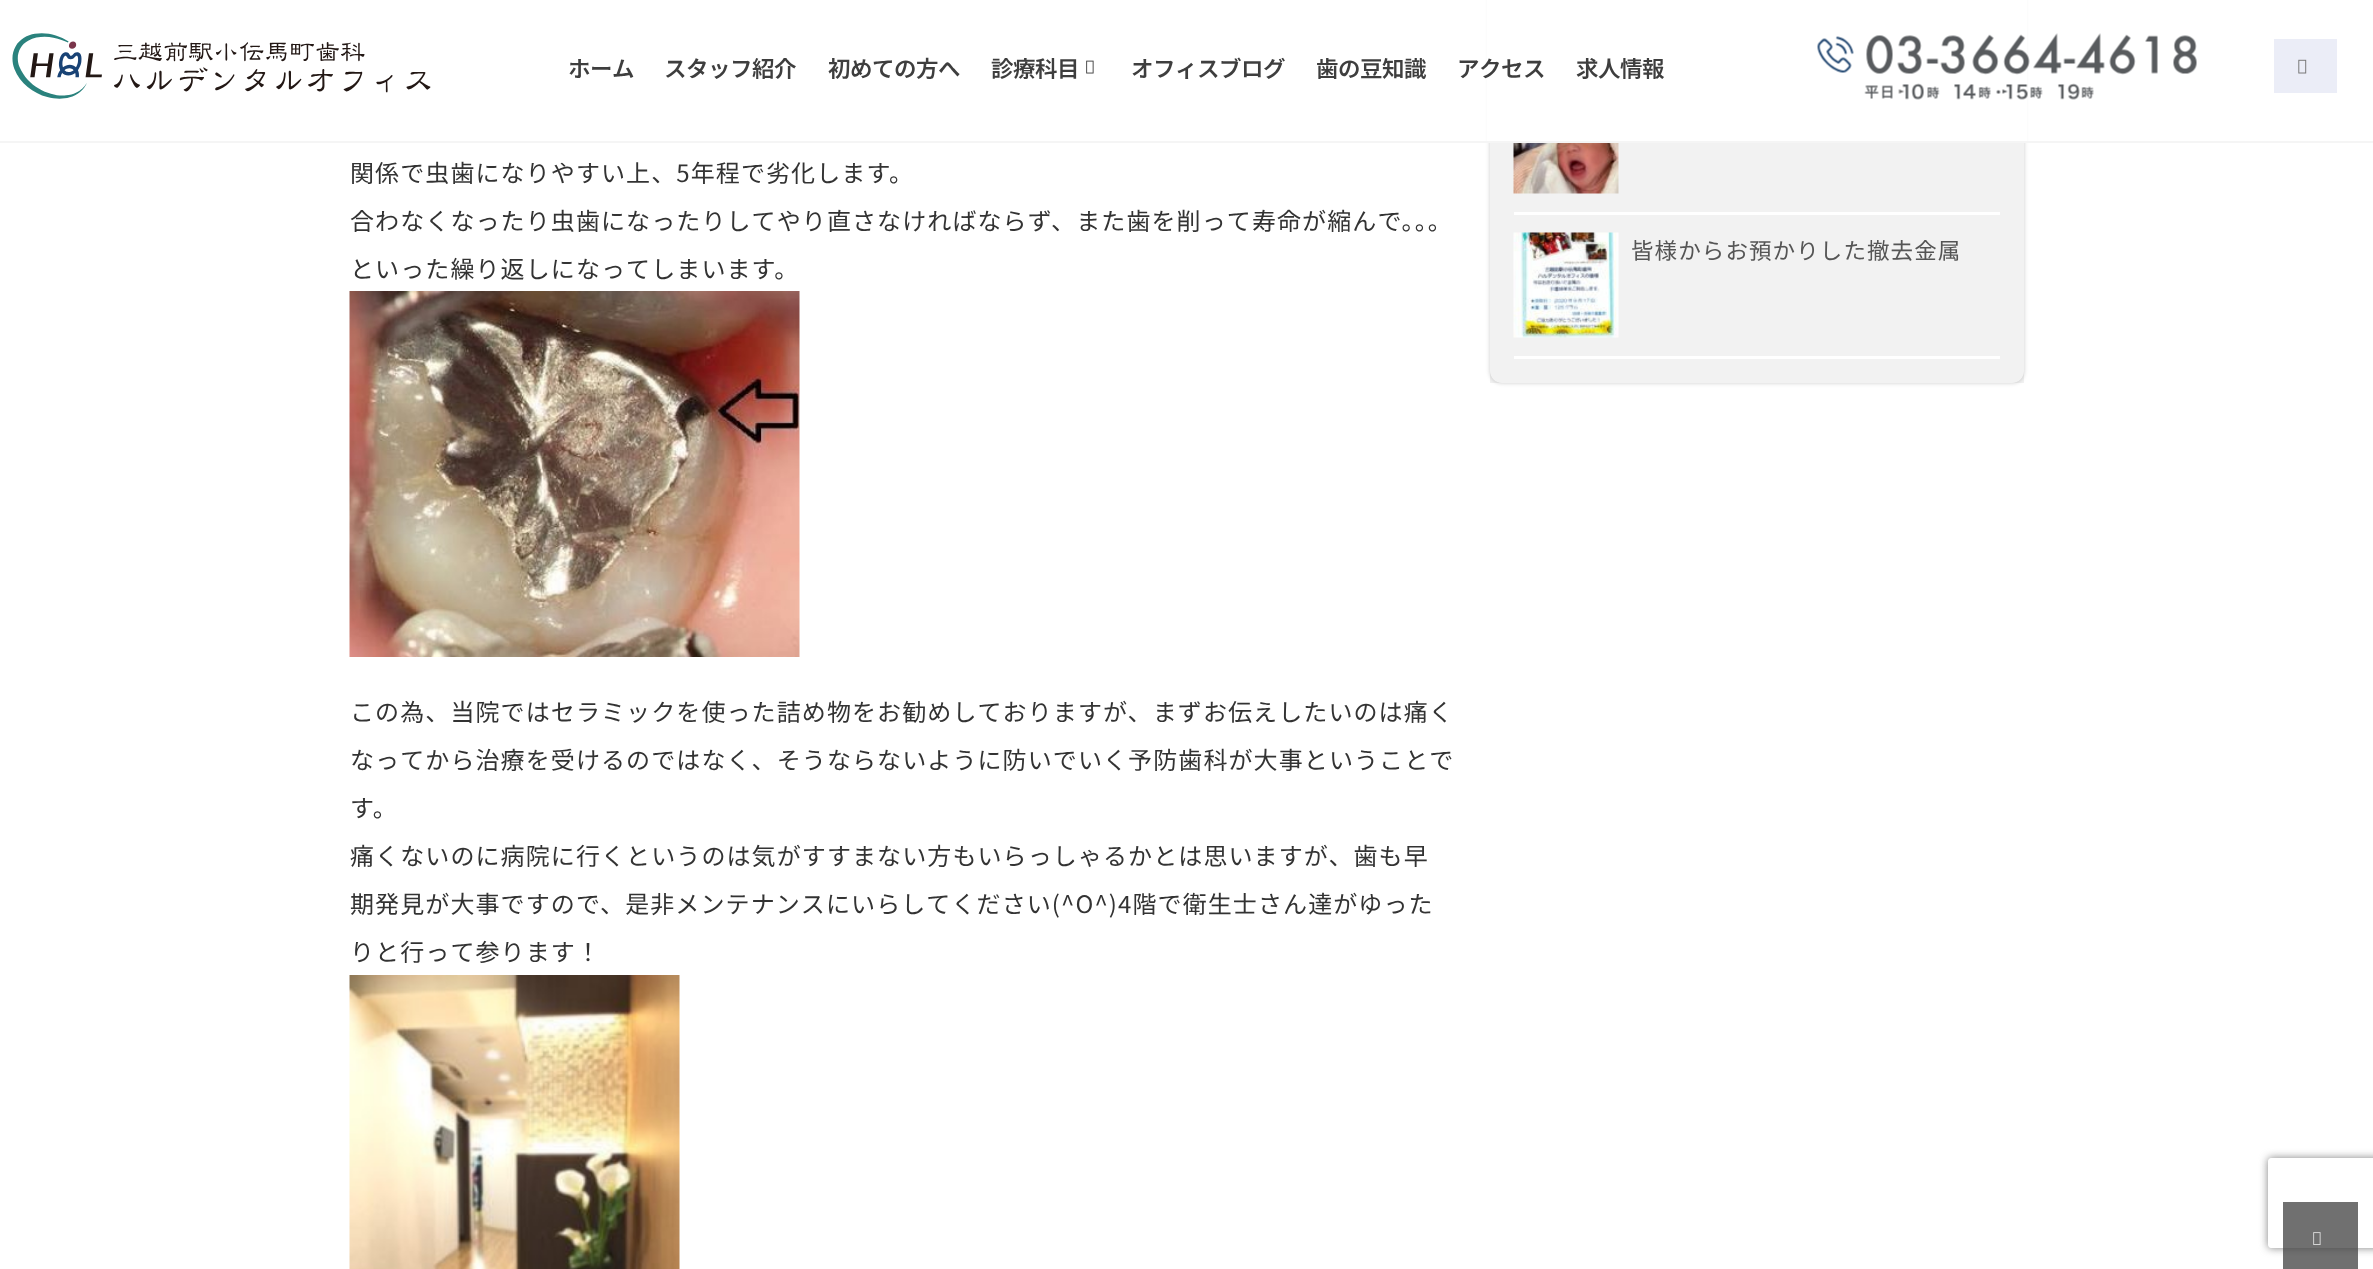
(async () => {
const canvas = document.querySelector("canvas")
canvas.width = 2373
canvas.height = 1269
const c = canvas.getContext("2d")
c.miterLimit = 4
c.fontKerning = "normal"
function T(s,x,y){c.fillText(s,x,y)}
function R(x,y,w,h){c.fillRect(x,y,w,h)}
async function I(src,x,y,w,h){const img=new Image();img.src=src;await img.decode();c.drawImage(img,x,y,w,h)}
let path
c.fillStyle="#fff"
R(0,0,2373,1269)
c.save()
path = new Path2D("M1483 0h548v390h-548zm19-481h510c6.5 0 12 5.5 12 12v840c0 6.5-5.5 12-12 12h-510c-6.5 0-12-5.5-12-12v-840c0-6.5 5.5-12 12-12z")
c.clip(path,"evenodd")
c.fillStyle="#00000033"
c.filter="blur(2px)"
c.beginPath()
c.roundRect(1490,-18,534,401,12)
c.fill()
c.filter="none"
c.restore()
R(1487,0,540,141)
c.fillStyle="#f5f5f5"
R(0,141,2373,2)
await I("1.png",12,33,419,66)
c.letterSpacing="-0.5px"
c.font="600 22.5px Noto Sans JP"
c.fillStyle="#3e3e3e"
T("ホーム",568,77)
T("スタッフ紹介",664,77)
T("初めての方へ",828,77)
T("診療科目",991,77)
await I("2.png",1086,60,8,14)
T("オフィスブログ",1131,77)
T("歯の豆知識",1316,77)
T("アクセス",1457,77)
T("求人情報",1576,77)
await I("3.png",1817,33,380,67)
c.fillStyle="#ebedf7"
R(2274,39,63,54)
await I("4.png",2298,59,9,15)
c.letterSpacing="1.1px"
c.font="24px Noto Sans JP"
c.fillStyle="#333"
T("関係で虫歯になりやすい上、5年程で劣化します。",350,182)
T("合わなくなったり虫歯になったりしてやり直さなければならず、また歯を削って寿命が縮んで。。。",350,230)
T("といった繰り返しになってしまいます。",350,278)
await I("5.png",349,291,451,366)
T("この為、当院ではセラミックを使った詰め物をお勧めしておりますが、まずお伝えしたいのは痛く",350,721)
T("なってから治療を受けるのではなく、そうならないように防いでいく予防歯科が大事ということで",350,769)
T("す。",350,817)
T("痛くないのに病院に行くというのは気がすすまない方もいらっしゃるかとは思いますが、歯も早",350,865)
T("期発見が大事ですので、是非メンテナンスにいらしてください(^O^)4階で衛生士さん達がゆった",350,913)
T("りと行って参ります！",350,961)
await I("6.png",349,975,331,294)
c.fillStyle="#0000000d"
R(1490,143,534,240)
c.fillStyle="#fff"
R(1514,212,486,3)
await I("7.png",1513,143,106,51)
R(1514,356,486,3)
await I("8.png",1513,232,106,106)
c.font="22.5px Noto Sans JP"
c.fillStyle="#555"
T("皆様からお預かりした撤去金属",1631,259)
c.save()
path = new Path2D("M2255 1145h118v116h-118zm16 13h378c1.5 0 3 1.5 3 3v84c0 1.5-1.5 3-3 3h-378c-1.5 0-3-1.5-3-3v-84c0-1.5 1.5-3 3-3z")
c.clip(path,"evenodd")
c.fillStyle="#808080"
c.filter="blur(4px)"
c.beginPath()
c.roundRect(2268,1158,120,90,3)
c.fill()
c.filter="none"
c.restore()
c.fillStyle="#404040bf"
R(2283,1202,75,67)
await I("9.png",2313,1232,8,13)
})()
